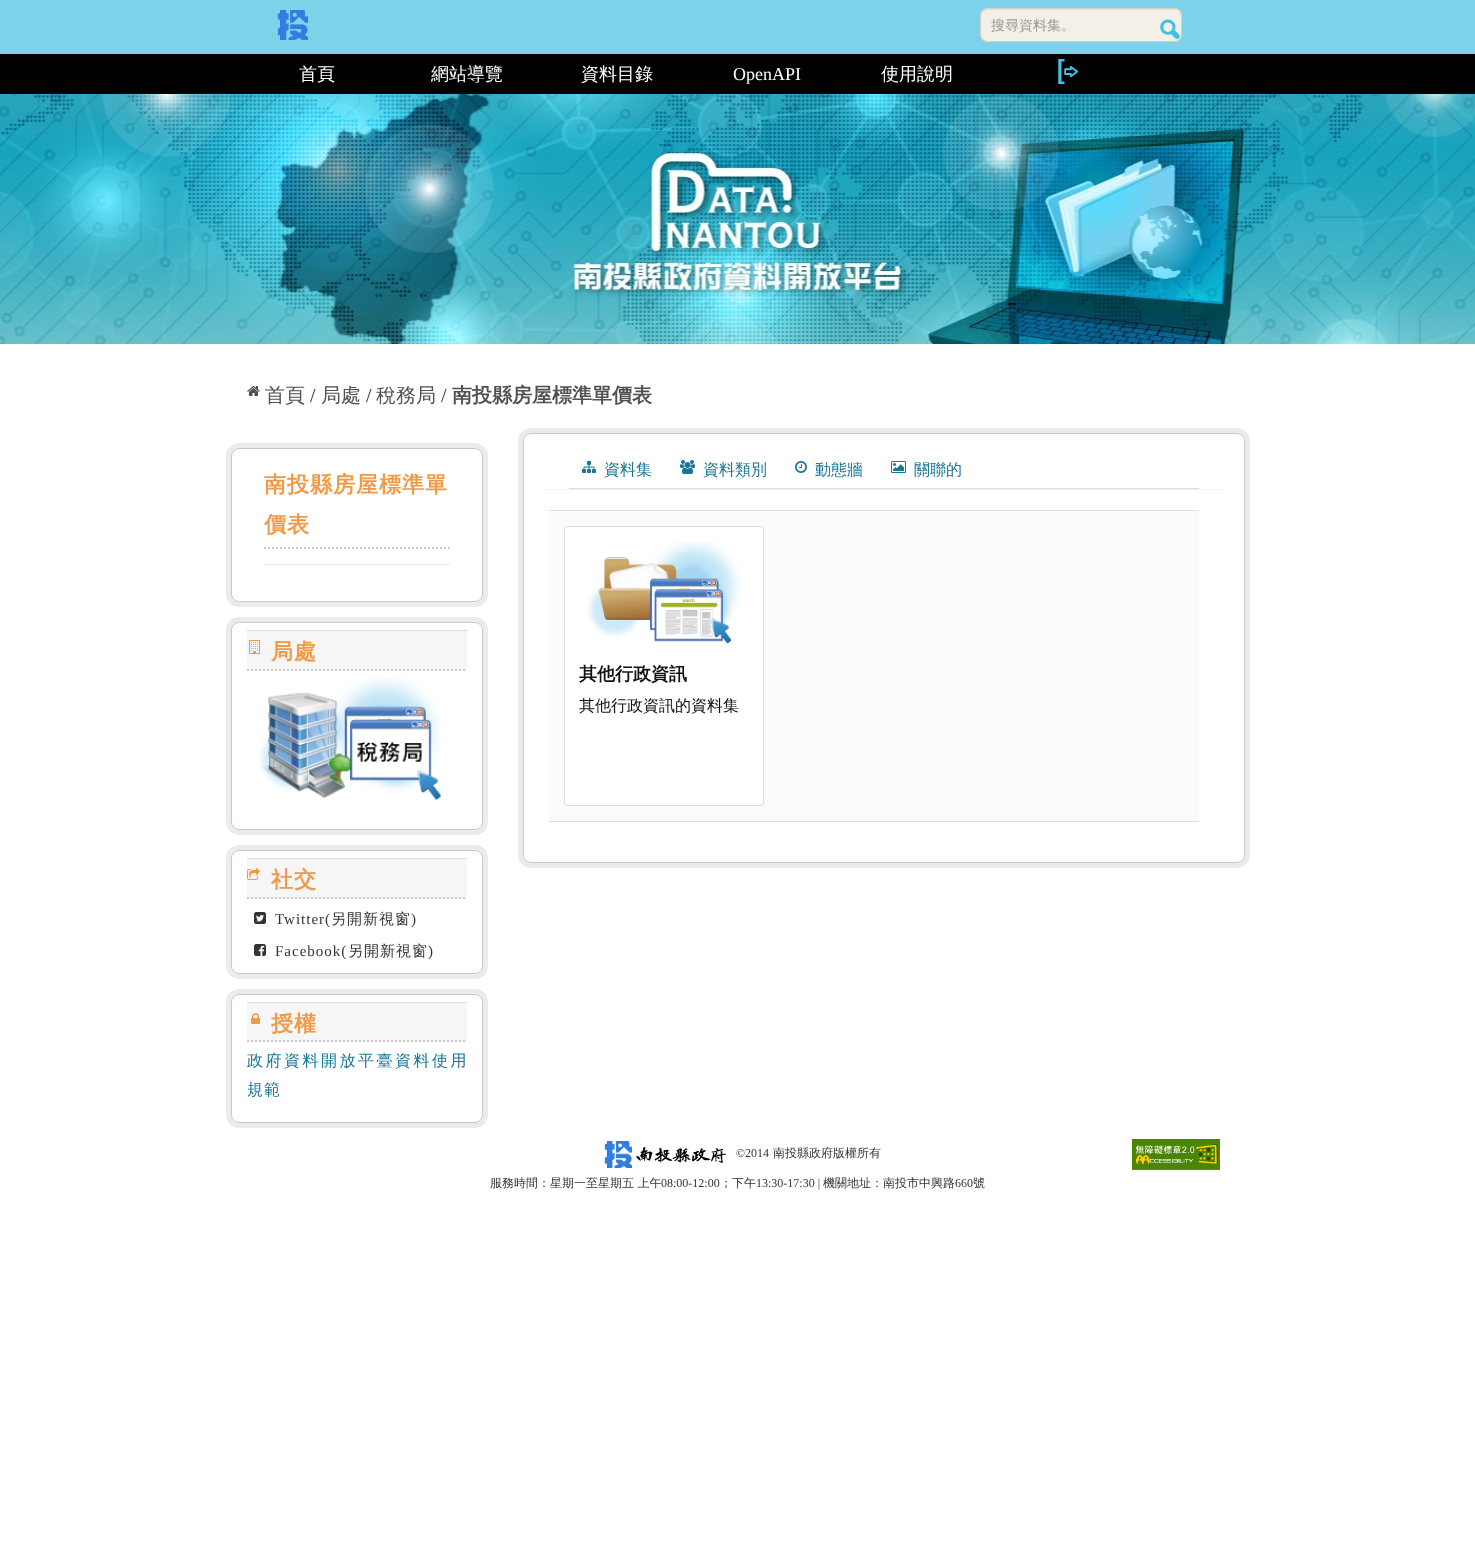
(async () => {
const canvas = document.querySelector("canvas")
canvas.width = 1475
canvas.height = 1551
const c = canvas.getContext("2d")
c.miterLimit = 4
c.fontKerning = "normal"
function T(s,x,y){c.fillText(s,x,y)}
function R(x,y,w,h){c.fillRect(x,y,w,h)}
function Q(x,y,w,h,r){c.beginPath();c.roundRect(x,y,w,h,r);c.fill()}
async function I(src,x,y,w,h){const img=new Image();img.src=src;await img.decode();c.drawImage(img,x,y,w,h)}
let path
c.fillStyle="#fff"
R(0,0,1475,1551)
c.fillStyle="#7dd2ea"
R(0,0,1475,54)
await I("1.png",277,10,31,30)
c.fillStyle="#f5f0e7"
Q(980,8,202,34,8)
c.fillStyle="#e3ded6"
path = new Path2D("M988 10h186c4 0 7 3 7 7v-1c0-4-3-7-7-7h-186c-4 0-7 3-7 7v1c0-4 3-7 7-7z")
c.fill(path)
c.beginPath()
c.roundRect(980.5,8.5,201,33,7.5)
c.strokeStyle="#d7d0c0"
c.stroke()
c.font="500 14px WenQuanYi Zen Hei"
c.fillStyle="#999"
T("搜尋資料集。",991,30)
await I("2.png",1160,19,20,20)
c.fillStyle="#000"
R(0,54,1475,40)
c.font="500 18px WenQuanYi Zen Hei"
c.fillStyle="#fff"
T("首頁",299,80)
T("網站導覽",431,80)
T("資料目錄",581,80)
c.font="18px Liberation Serif"
T("OpenAPI",733,80)
c.font="500 18px WenQuanYi Zen Hei"
T("使用說明",881,80)
await I("3.png",1058,59,20,25)
await I("4.png",0,94,1475,250)
await I("5.png",247,386,13,10)
c.font="500 20px WenQuanYi Zen Hei"
c.fillStyle="#505050"
T("首頁",265,402)
c.font="20px Liberation Serif"
c.fillStyle="#333"
T("/",310,402)
c.font="500 20px WenQuanYi Zen Hei"
c.fillStyle="#505050"
T("局處",321,402)
c.font="20px Liberation Serif"
c.fillStyle="#333"
T("/",366,402)
c.font="500 20px WenQuanYi Zen Hei"
c.fillStyle="#505050"
T("稅務局",376,402)
c.font="20px Liberation Serif"
c.fillStyle="#333"
T("/",441,402)
c.font="bold 20px WenQuanYi Zen Hei"
c.fillStyle="#505050"
T("南投縣房屋標準單價表",452,402)
c.beginPath()
c.roundRect(228.5,445.5,257,159,10.5)
c.strokeStyle="#ebebeb"
c.lineWidth=5
c.stroke()
c.fillStyle="#fff"
c.beginPath()
c.roundRect(231.5,448.5,251,153,7.5)
c.fill()
c.strokeStyle="#c8c8c8"
c.lineWidth=1
c.stroke()
path = new Path2D("M264 548h186")
c.strokeStyle="#ccc"
c.lineWidth=2
c.setLineDash([2,2])
c.stroke(path)
c.letterSpacing="1px"
c.font="bold 22px WenQuanYi Zen Hei"
c.fillStyle="#f19945"
T("南投縣房屋標準單",264,492)
T("價表",264,532)
path = new Path2D("M264 564.5h186")
c.strokeStyle="#ddd"
c.lineWidth=1
c.setLineDash([1,1])
c.stroke(path)
c.beginPath()
c.roundRect(228.5,619.5,257,213,10.5)
c.strokeStyle="#ebebeb"
c.lineWidth=5
c.setLineDash([])
c.stroke()
c.fillStyle="#fff"
c.beginPath()
c.roundRect(231.5,622.5,251,207,7.5)
c.fill()
c.strokeStyle="#c8c8c8"
c.lineWidth=1
c.stroke()
c.fillStyle="#f6f6f6"
R(247,631,220,40)
c.fillStyle="#ddd"
R(247,630,220,1)
path = new Path2D("M247 670h220")
c.strokeStyle="#ccc"
c.lineWidth=2
c.setLineDash([2,2])
c.stroke(path)
await I("6.png",249,640,11,14)
c.fillStyle="#f19945"
T("局處",271,659)
await I("7.png",259,678,182,122)
c.beginPath()
c.roundRect(228.5,847.5,257,129,10.5)
c.strokeStyle="#ebebeb"
c.lineWidth=5
c.setLineDash([])
c.stroke()
c.fillStyle="#fff"
c.beginPath()
c.roundRect(231.5,850.5,251,123,7.5)
c.fill()
c.strokeStyle="#c8c8c8"
c.lineWidth=1
c.stroke()
c.fillStyle="#f6f6f6"
R(247,859,220,40)
c.fillStyle="#ddd"
R(247,858,220,1)
path = new Path2D("M247 898h220")
c.strokeStyle="#ccc"
c.lineWidth=2
c.setLineDash([2,2])
c.stroke(path)
await I("8.png",247,868,13,12)
c.fillStyle="#f19945"
T("社交",271,887)
await I("9.png",254,912,12,12)
c.font="15px Liberation Serif"
c.fillStyle="#333"
T("Twitter(",275,924)
c.font="500 15px WenQuanYi Zen Hei"
T("另開新視窗",331,924)
c.font="15px Liberation Serif"
T(")",411,924)
await I("10.png",254,944,12,12)
T("Facebook(",275,956)
c.font="500 15px WenQuanYi Zen Hei"
T("另開新視窗",348,956)
c.font="15px Liberation Serif"
T(")",428,956)
c.beginPath()
c.roundRect(228.5,991.5,257,134,10.5)
c.strokeStyle="#ebebeb"
c.lineWidth=5
c.setLineDash([])
c.stroke()
c.fillStyle="#fff"
c.beginPath()
c.roundRect(231.5,994.5,251,128,7.5)
c.fill()
c.strokeStyle="#c8c8c8"
c.lineWidth=1
c.stroke()
c.fillStyle="#f6f6f6"
R(247,1003,220,39)
c.fillStyle="#ddd"
R(247,1002,220,1)
path = new Path2D("M247 1041h220")
c.strokeStyle="#ccc"
c.lineWidth=2
c.setLineDash([2,2])
c.stroke(path)
await I("11.png",251,1013,9,11)
c.font="bold 22px WenQuanYi Zen Hei"
c.fillStyle="#f19945"
T("授權",271,1031)
c.letterSpacing="2.5px"
c.font="500 16px WenQuanYi Zen Hei"
c.fillStyle="#187794"
T("政府資料開放平臺資料使用",247,1066)
c.letterSpacing="1px"
T("規範",247,1095)
c.beginPath()
c.roundRect(520.5,430.5,727,435,10.5)
c.strokeStyle="#ebebeb"
c.lineWidth=5
c.setLineDash([])
c.stroke()
c.fillStyle="#fff"
c.beginPath()
c.roundRect(523.5,433.5,721,429,7.5)
c.fill()
c.strokeStyle="#c8c8c8"
c.lineWidth=1
c.stroke()
c.fillStyle="#eee"
R(544,489,680,1)
c.fillStyle="#ddd"
R(569,488,630,1)
await I("12.png",582,461,14,12)
c.letterSpacing="0px"
c.fillStyle="#187794"
T("資料集",604,475)
await I("13.png",680,460,15,14)
T("資料類別",703,475)
await I("14.png",795,461,12,12)
T("動態牆",815,475)
await I("15.png",891,461,15,12)
T("關聯的",914,475)
c.fillStyle="#fbfbfb"
R(549,511,650,310)
c.fillStyle="#ddd"
R(549,510,650,1)
R(549,821,650,1)
c.fillStyle="#fff"
Q(564,526,200,280,3)
await I("16.png",587,541,154,103)
c.beginPath()
c.roundRect(564.5,526.5,199,279,2.5)
c.strokeStyle="#ddd"
c.stroke()
c.font="bold 18px WenQuanYi Zen Hei"
c.fillStyle="#111"
T("其他行政資訊",579,680)
c.font="500 16px WenQuanYi Zen Hei"
T("其他行政資訊的資料集",579,711)
await I("17.png",604,1141,122,27)
c.font="12px Liberation Serif"
c.fillStyle="#333"
T("©2014",736,1157)
c.font="500 12px WenQuanYi Zen Hei"
T("南投縣政府版權所有",773,1157)
await I("18.png",1132,1139,88,31)
T("服務時間：星期一至星期五 上午",490,1187)
c.font="12px Liberation Serif"
T("08:00-12:00",661,1187)
c.font="500 12px WenQuanYi Zen Hei"
T("；下午",720,1187)
c.font="12px Liberation Serif"
T("13:30-17:30 |",756,1187)
c.font="500 12px WenQuanYi Zen Hei"
T("機關地址：南投市中興路",823,1187)
c.font="12px Liberation Serif"
T("660",955,1187)
c.font="500 12px WenQuanYi Zen Hei"
T("號",973,1187)
})()
